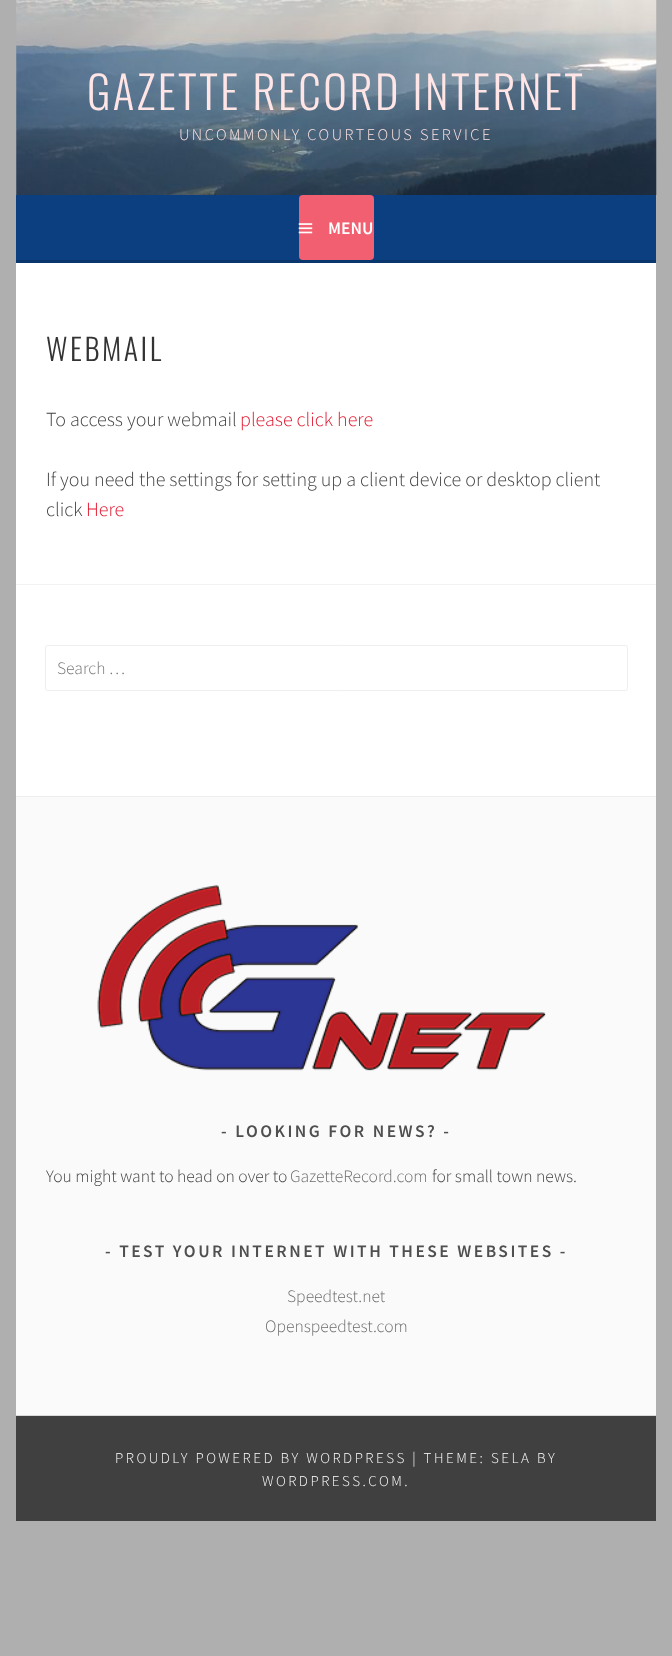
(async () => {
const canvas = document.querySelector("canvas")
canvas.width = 672
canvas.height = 1656
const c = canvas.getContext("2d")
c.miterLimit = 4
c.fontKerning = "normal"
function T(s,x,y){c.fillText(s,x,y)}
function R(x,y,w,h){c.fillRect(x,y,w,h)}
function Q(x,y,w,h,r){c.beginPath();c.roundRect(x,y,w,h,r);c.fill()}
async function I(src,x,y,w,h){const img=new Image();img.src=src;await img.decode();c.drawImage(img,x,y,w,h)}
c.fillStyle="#afafaf"
R(0,0,672,1656)
await I("1.png",16,0,641,195)
c.letterSpacing="2.5px"
c.font="300 45px Oswald"
c.fillStyle="#ffe5e5"
T("GAZETTE RECORD INTERNET",87,110)
c.font="300 16.25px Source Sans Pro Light"
T("UNCOMMONLY COURTEOUS SERVICE",179,140)
c.fillStyle="#0b3f80"
R(16,195,640,65)
c.fillStyle="#09366d"
R(16,260,640,3)
c.fillStyle="#f25f70"
Q(299,195,75,65,4)
await I("2.png",298,223,15,11)
c.letterSpacing="0px"
c.font="600 17.5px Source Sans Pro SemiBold"
c.fillStyle="#fff"
T("MENU",328,234)
R(16,263,640,533)
c.letterSpacing="2.5px"
c.font="300 30px Oswald"
c.fillStyle="#333"
T("WEBMAIL",46,361)
c.letterSpacing="0px"
c.font="300 20px Source Sans Pro Light"
c.fillStyle="#404040"
T("To access your webmail",46,426)
c.fillStyle="#e1122a"
T("please click here",240,426)
c.fillStyle="#404040"
T("If you need the settings for setting up a client device or desktop client",46,486)
T("click",46,516)
c.fillStyle="#e1122a"
T("Here",86,516)
c.fillStyle="#f2f2f2"
R(16,584,640,1)
c.beginPath()
c.roundRect(45.5,645.5,582,45,2)
c.strokeStyle="#eee"
c.stroke()
c.font="300 17.5px Source Sans Pro Light"
c.fillStyle="#757575"
T("Search …",57,674)
c.fillStyle="#fafafa"
R(16,797,640,618)
c.fillStyle="#eee"
R(16,796,640,1)
await I("3.png",97,884,449,187)
c.letterSpacing="2.5px"
c.font="600 17.5px Source Sans Pro SemiBold"
c.fillStyle="#4f4f4f"
T("- LOOKING FOR NEWS? -",221,1137)
c.letterSpacing="0px"
c.font="300 17.5px Source Sans Pro Light"
c.fillStyle="#404040"
T("You might want to head on over to",46,1182)
c.fillStyle="#6d6d6d"
T("GazetteRecord.com",290,1182)
c.fillStyle="#404040"
T("for small town news.",432,1182)
c.letterSpacing="2.5px"
c.font="600 17.5px Source Sans Pro SemiBold"
c.fillStyle="#4f4f4f"
T("- TEST YOUR INTERNET WITH THESE WEBSITES -",105,1257)
c.letterSpacing="0px"
c.font="300 17.5px Source Sans Pro Light"
c.fillStyle="#6d6d6d"
T("Speedtest.net",287,1302)
T("Openspeedtest.com",265,1332)
c.fillStyle="#404040"
R(16,1416,640,105)
c.fillStyle="#d9d9d9"
R(16,1415,640,1)
c.letterSpacing="2.5px"
c.font="300 15px Source Sans Pro Light"
c.fillStyle="#fff"
T("PROUDLY POWERED BY WORDPRESS | THEME: SELA BY",115,1463)
T("WORDPRESS.COM.",262,1486)
})()
